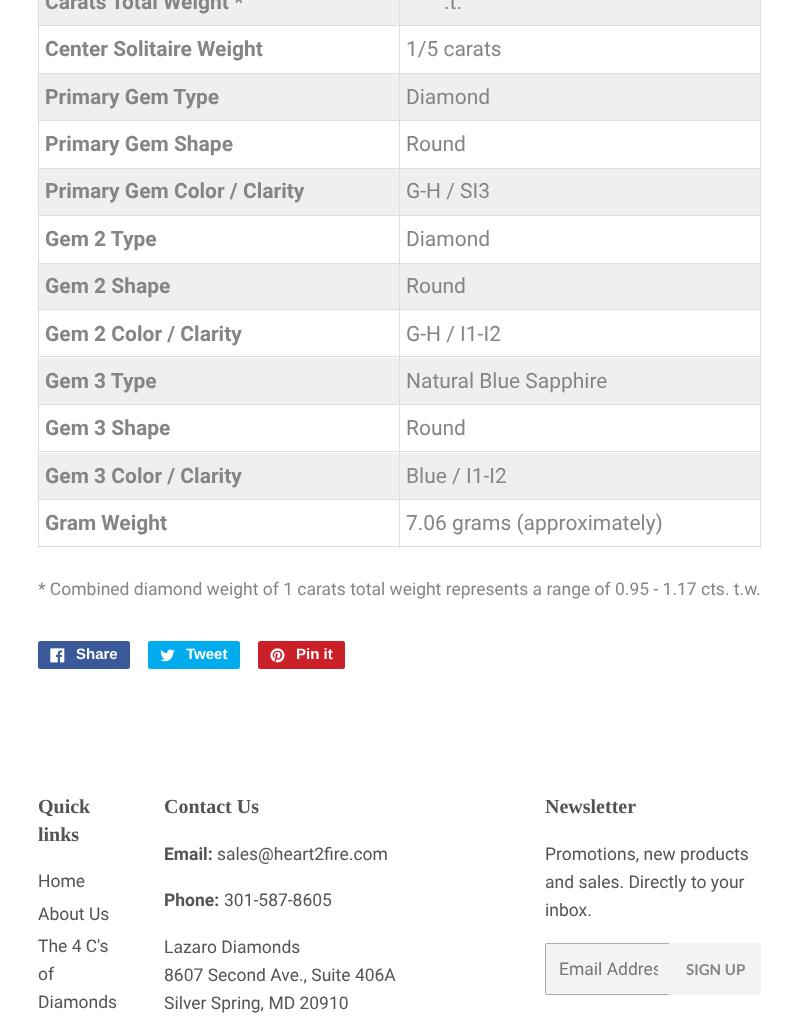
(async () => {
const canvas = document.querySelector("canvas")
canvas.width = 798
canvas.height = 1023
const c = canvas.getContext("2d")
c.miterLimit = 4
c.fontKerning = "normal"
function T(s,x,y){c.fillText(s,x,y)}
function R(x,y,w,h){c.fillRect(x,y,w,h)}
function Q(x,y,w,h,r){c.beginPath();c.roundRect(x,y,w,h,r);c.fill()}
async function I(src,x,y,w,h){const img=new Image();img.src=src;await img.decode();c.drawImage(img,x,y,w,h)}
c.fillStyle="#fff"
R(0,0,798,1023)
c.fillStyle="#efefee"
R(39,0,721,25)
c.font="bold 21px Roboto"
c.fillStyle="#858585"
T("Carats Total Weight *",45,9)
c.fillStyle="#dedede"
R(399,25,362,1)
R(399,73,362,1)
c.fillStyle="#efefee"
R(39,74,721,46)
c.fillStyle="#dedede"
R(399,120,362,1)
R(399,168,362,1)
c.fillStyle="#efefee"
R(39,169,721,46)
c.fillStyle="#dedede"
R(399,215,362,1)
R(399,263,362,1)
c.fillStyle="#efefee"
R(39,264,721,45)
c.fillStyle="#dedede"
R(399,309,362,1)
R(399,356,362,1)
c.fillStyle="#efefee"
R(39,358,721,46)
c.fillStyle="#dedede"
R(399,404,362,1)
R(399,451,362,1)
c.fillStyle="#efefee"
R(39,453,721,46)
c.fillStyle="#dedede"
R(399,499,362,1)
R(760,499,1,49)
R(399,546,362,1)
R(399,499,1,49)
R(38,499,362,1)
R(399,451,1,49)
R(38,451,362,1)
R(399,404,1,49)
R(38,404,362,1)
R(399,356,1,49)
R(38,356,362,1)
R(399,309,1,49)
R(38,309,362,1)
R(399,263,1,47)
R(38,263,362,1)
R(399,215,1,49)
R(38,215,362,1)
R(399,168,1,48)
R(38,168,362,1)
R(399,120,1,49)
R(38,120,362,1)
R(399,73,1,48)
R(38,73,362,1)
R(399,25,1,49)
R(38,25,362,1)
R(399,0,1,26)
c.font="21px Roboto"
c.fillStyle="#858585"
T(".t.",444,9)
c.fillStyle="#dedede"
R(38,546,362,1)
R(38,499,1,49)
R(38,451,1,49)
R(38,404,1,49)
R(38,356,1,49)
R(38,309,1,49)
R(38,263,1,47)
R(38,215,1,49)
R(38,168,1,48)
R(38,120,1,49)
R(38,73,1,48)
R(38,0,1,74)
c.font="bold 21px Roboto"
c.fillStyle="#858585"
T("Center Solitaire Weight",45,56)
c.fillStyle="#dedede"
R(760,451,1,49)
R(760,404,1,49)
R(760,356,1,49)
R(760,309,1,49)
R(760,263,1,47)
R(760,215,1,49)
R(760,168,1,48)
R(760,120,1,49)
R(760,73,1,48)
R(760,0,1,74)
c.font="21px Roboto"
c.fillStyle="#858585"
T("1/5 carats",406,56)
c.font="bold 21px Roboto"
T("Primary Gem Type",45,104)
c.font="21px Roboto"
T("Diamond",406,104)
c.font="bold 21px Roboto"
T("Primary Gem Shape",45,151)
c.font="21px Roboto"
T("Round",406,151)
c.font="bold 21px Roboto"
T("Primary Gem Color / Clarity",45,198)
c.font="21px Roboto"
T("G-H / SI3",406,198)
c.font="bold 21px Roboto"
T("Gem 2 Type",45,246)
c.font="21px Roboto"
T("Diamond",406,246)
c.font="bold 21px Roboto"
T("Gem 2 Shape",45,293)
c.font="21px Roboto"
T("Round",406,293)
c.font="bold 21px Roboto"
T("Gem 2 Color / Clarity",45,341)
c.font="21px Roboto"
T("G-H / I1-I2",406,341)
c.font="bold 21px Roboto"
T("Gem 3 Type",45,388)
c.font="21px Roboto"
T("Natural Blue Sapphire",406,388)
c.font="bold 21px Roboto"
T("Gem 3 Shape",45,435)
c.font="21px Roboto"
T("Round",406,435)
c.font="bold 21px Roboto"
T("Gem 3 Color / Clarity",45,483)
c.font="21px Roboto"
T("Blue / I1-I2",406,483)
c.font="bold 21px Roboto"
T("Gram Weight",45,530)
c.font="21px Roboto"
T("7.06 grams (approximately)",406,530)
c.font="17.5px Roboto"
T("* Combined diamond weight of 1 carats total weight represents a range of 0.95 - 1.17 cts. t.w.",38,595)
c.fillStyle="#3b5998"
Q(38,641,92,28,2.5)
await I("1.png",50,648,15,15)
c.font="bold 15px Liberation Sans"
c.fillStyle="#fff"
T("Share",76,659)
c.fillStyle="#00aced"
Q(148,641,92,28,2.5)
await I("2.png",160,649,15,13)
c.fillStyle="#fff"
T("Tweet",186,659)
c.fillStyle="#cb2027"
Q(258,641,87,28,2.5)
await I("3.png",270,648,15,15)
c.fillStyle="#fff"
T("Pin it",296,659)
c.font="bold 20px Liberation Serif"
c.fillStyle="#545454"
T("Quick",38,813)
T("links",38,841)
c.font="17.5px Roboto"
T("Home",38,887)
T("About Us",38,920)
T("The 4 C's",38,952)
T("of",38,980)
T("Diamonds",38,1008)
c.font="bold 20px Liberation Serif"
T("Contact Us",164,813)
c.font="bold 17.5px Roboto"
T("Email:",164,860)
c.font="17.5px Roboto"
T("sales@heart2fire.com",217,860)
c.font="bold 17.5px Roboto"
T("Phone:",164,906)
c.font="17.5px Roboto"
T("301-587-8605",224,906)
T("Lazaro Diamonds",164,953)
T("8607 Second Ave., Suite 406A",164,981)
T("Silver Spring, MD 20910",164,1009)
c.font="bold 20px Liberation Serif"
T("Newsletter",545,813)
c.font="17.5px Roboto"
T("Promotions, new products",545,860)
T("and sales. Directly to your",545,888)
T("inbox.",545,916)
c.fillStyle="#f3f3f3"
Q(545,943,125,52,2.5)
c.fillStyle="#ababab"
R(546,943,123,1)
R(546,994,123,1)
R(545,944,1,50)
c.save()
c.beginPath()
c.rect(559,959,99,20)
c.clip()
c.fillStyle="#757575"
T("Email Addres",559,975)
c.restore()
c.fillStyle="#f3f3f3"
c.beginPath()
c.roundRect(670,943,91,52,[0,2.5,2.5,0])
c.fill()
c.font="bold 15px Lato"
c.fillStyle="#858585"
T("SIGN UP",686,975)
})()
